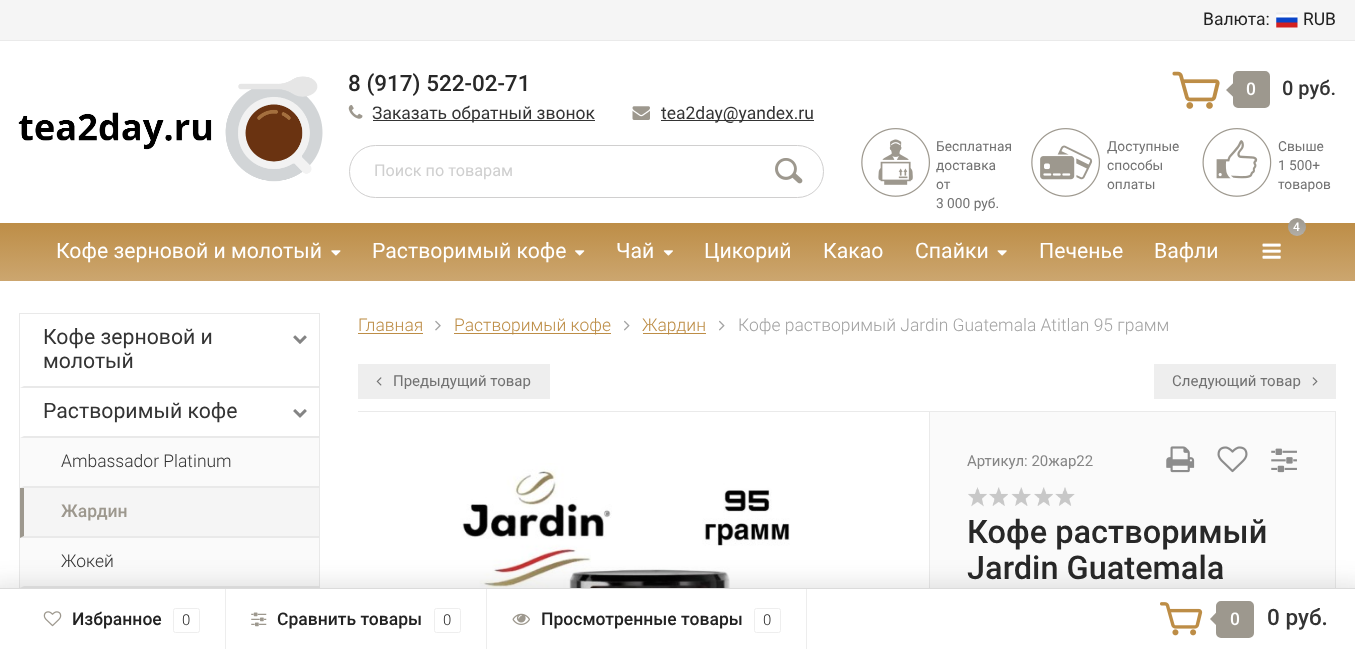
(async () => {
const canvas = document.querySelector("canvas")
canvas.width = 1355
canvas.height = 649
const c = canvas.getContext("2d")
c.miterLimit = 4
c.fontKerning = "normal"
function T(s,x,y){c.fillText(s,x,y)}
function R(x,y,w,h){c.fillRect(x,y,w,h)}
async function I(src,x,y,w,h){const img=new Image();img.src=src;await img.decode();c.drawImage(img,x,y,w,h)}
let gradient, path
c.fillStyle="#fff"
R(0,0,1355,649)
c.fillStyle="#f5f5f5"
R(0,0,1355,40)
c.fillStyle="#eaeaea"
R(0,40,1355,1)
c.font="17.5px Roboto"
c.fillStyle="#222"
T("Валюта:",1203,25)
await I("1.png",1276,12,22,16)
T("RUB",1303,25)
await I("2.png",18,76,305,106)
c.font="500 22.5px Roboto"
c.fillStyle="#282828"
T("8 (917) 522-02-71",348,91)
await I("3.png",348,105,15,14)
c.fillStyle="#343434"
R(373,120,222,1)
c.font="17.5px Roboto"
T("Заказать обратный звонок",372,119)
await I("4.png",632,106,18,14)
R(661,120,153,1)
T("tea2day@yandex.ru",661,119)
await I("5.png",1172,71,48,38)
c.fillStyle="#9d988e"
c.beginPath()
c.roundRect(1235.5,73.5,32,32,2.5)
c.fill()
c.strokeStyle="#9d988e"
c.lineWidth=5
c.stroke()
path = new Path2D("M1237.5 79v22l-11.5-11z")
c.fill(path)
c.font="500 17.5px Roboto"
c.fillStyle="#fff"
T("0",1246,95)
c.font="500 20px Roboto"
c.fillStyle="#343434"
T("0 руб.",1282,95)
c.beginPath()
c.roundRect(349.5,145.5,474,52,26)
c.strokeStyle="#d0cfcf"
c.lineWidth=1
c.stroke()
c.font="16.25px Roboto"
c.fillStyle="#cfcfcf"
T("Поиск по товарам",374,176)
await I("6.png",775,158,28,26)
await I("7.png",861,128,69,69)
c.font="13.75px Roboto"
c.fillStyle="#717171"
T("Бесплатная",936,151)
T("доставка",936,170)
T("от",936,189)
T("3 000 руб.",936,208)
await I("8.png",1031,128,69,69)
T("Доступные",1107,151)
T("способы",1107,170)
T("оплаты",1107,189)
await I("9.png",1202,128,70,69)
T("Свыше",1278,151)
T("1 500+",1278,170)
T("товаров",1278,189)
gradient = c.createLinearGradient(678,222,678,281)
gradient.addColorStop(0,"#bd8d46")
gradient.addColorStop(1,"#cca66f")
c.fillStyle = gradient
R(0,223,1355,58)
c.fillStyle="#9d988e"
c.beginPath()
c.arc(1297,227,9,0,7)
c.fill()
gradient = c.createLinearGradient(1297,218,1297,236)
gradient.addColorStop(0,"#ffffff00")
gradient.addColorStop(1,"#ffffff38")
c.fillStyle = gradient
c.beginPath()
c.arc(1297,227,9,0,7)
c.fill()
c.font="500 12px Roboto"
c.fillStyle="#fff"
T("4",1293,231)
await I("10.png",1262,243,19,16)
c.font="21.25px Roboto"
T("Кофе зерновой и молотый",56,258)
await I("11.png",331,250,10,6)
T("Растворимый кофе",372,258)
await I("12.png",575,250,10,6)
T("Чай",616,258)
await I("13.png",663,250,10,6)
T("Цикорий",704,258)
T("Какао",823,258)
T("Спайки",915,258)
await I("14.png",997,250,10,6)
T("Печенье",1039,258)
T("Вафли",1154,258)
c.fillStyle="#e9e9e9"
R(19,313,301,1)
R(319,313,1,275)
R(19,313,1,275)
path = new Path2D("M319 388h-299l4-2h295z")
c.fill(path)
c.fillStyle="#343434"
T("Кофе зерновой и",43,344)
await I("15.png",293,335,14,9)
T("молотый",43,368)
c.fillStyle="#e9e9e9"
path = new Path2D("M319 438h-299l4-2h295z")
c.fill(path)
c.fillStyle="#343434"
T("Растворимый кофе",43,418)
await I("16.png",293,409,14,9)
c.fillStyle="#fafafa"
R(20,438,299,50)
c.fillStyle="#e9e9e9"
path = new Path2D("M319 488h-299l4-2h295z")
c.fill(path)
c.font="300 17.5px Roboto"
c.fillStyle="#343434"
T("Ambassador Platinum",61,467)
c.fillStyle="#f5f5f5"
R(20,488,299,50)
c.fillStyle="#e9e9e9"
path = new Path2D("M319 538h-299l4-2h295z")
c.fill(path)
c.fillStyle="#9d988e"
path = new Path2D("M20 538v-50h4v48z")
c.fill(path)
c.font="500 17.5px Roboto"
T("Жардин",61,517)
c.fillStyle="#fafafa"
R(20,538,299,50)
c.fillStyle="#e9e9e9"
path = new Path2D("M319 588h-299l4-2h295z")
c.fill(path)
c.font="300 17.5px Roboto"
c.fillStyle="#343434"
T("Жокей",61,567)
c.fillStyle="#bd8d46"
T("Главная",358,331)
R(358,333,65,1)
await I("17.png",435,320,6,11)
R(454,333,157,1)
T("Растворимый кофе",454,331)
await I("18.png",624,320,6,11)
R(643,333,63,1)
T("Жардин",642,331)
await I("18.png",719,320,6,11)
c.fillStyle="#a3a3a3"
T("Кофе растворимый Jardin Guatemala Atitlan 95 грамм",738,331)
c.fillStyle="#eee"
R(358,364,192,35)
await I("19.png",376,377,6,9)
c.font="15px Roboto"
c.fillStyle="#717171"
T("Предыдущий товар",393,386)
c.fillStyle="#eee"
R(1154,364,182,35)
c.fillStyle="#717171"
T("Следующий товар",1172,386)
await I("20.png",1312,377,6,9)
c.fillStyle="#eaeaea"
R(358,411,571,1)
await I("21.png",460,463,330,125)
c.fillStyle="#fafafa"
R(930,412,405,176)
c.strokeStyle="#eaeaea"
c.strokeRect(929.5,411.5,406,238)
c.fillStyle="#858585"
T("Артикул: 20жар22",967,466)
await I("22.png",1166,446,29,27)
await I("23.png",1217,446,31,27)
await I("24.png",1271,448,26,25)
await I("25.png",968,487,19,20)
await I("26.png",989,487,19,19)
await I("27.png",1011,487,20,19)
await I("28.png",1034,487,19,19)
await I("29.png",1055,487,20,19)
c.font="500 32.5px Roboto"
c.fillStyle="#282828"
T("Кофе растворимый",967,543)
T("Jardin Guatemala",967,579)
c.fillStyle="#32323226"
c.filter="blur(12.5px)"
c.beginPath()
c.rect(-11,585,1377,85)
c.fill()
c.filter="none"
c.fillStyle="#fff"
R(0,589,1355,60)
c.fillStyle="#dbdbdb"
R(0,588,1355,1)
c.fillStyle="#ededed"
R(225,589,1,60)
await I("30.png",43,611,19,16)
c.font="500 17.5px Roboto"
c.fillStyle="#222"
T("Избранное",72,625)
c.beginPath()
c.roundRect(173.5,608.5,26,24,2)
c.strokeStyle="#eee"
c.stroke()
c.font="300 15px Roboto"
T("0",182,625)
c.fillStyle="#ededed"
R(486,589,1,60)
await I("31.png",251,612,16,15)
c.font="500 17.5px Roboto"
c.fillStyle="#222"
T("Сравнить товары",277,625)
c.beginPath()
c.roundRect(434.5,608.5,26,24,2)
c.stroke()
c.font="300 15px Roboto"
T("0",443,625)
c.fillStyle="#ededed"
R(806,589,1,60)
await I("32.png",512,613,18,12)
c.font="500 17.5px Roboto"
c.fillStyle="#222"
T("Просмотренные товары",541,625)
c.beginPath()
c.roundRect(754.5,608.5,26,24,2)
c.stroke()
c.font="300 15px Roboto"
T("0",763,625)
await I("33.png",1160,602,43,34)
c.fillStyle="#9d988e"
c.beginPath()
c.roundRect(1218.5,603.5,33,32,2.5)
c.fill()
c.strokeStyle="#9d988e"
c.lineWidth=5
c.stroke()
path = new Path2D("M1221 607.5v22.5l-11-11z")
c.fill(path)
c.font="500 17.5px Roboto"
c.fillStyle="#fff"
T("0",1230,625)
c.font="500 22.5px Roboto"
c.fillStyle="#343434"
T("0 руб.",1267,625)
})()
